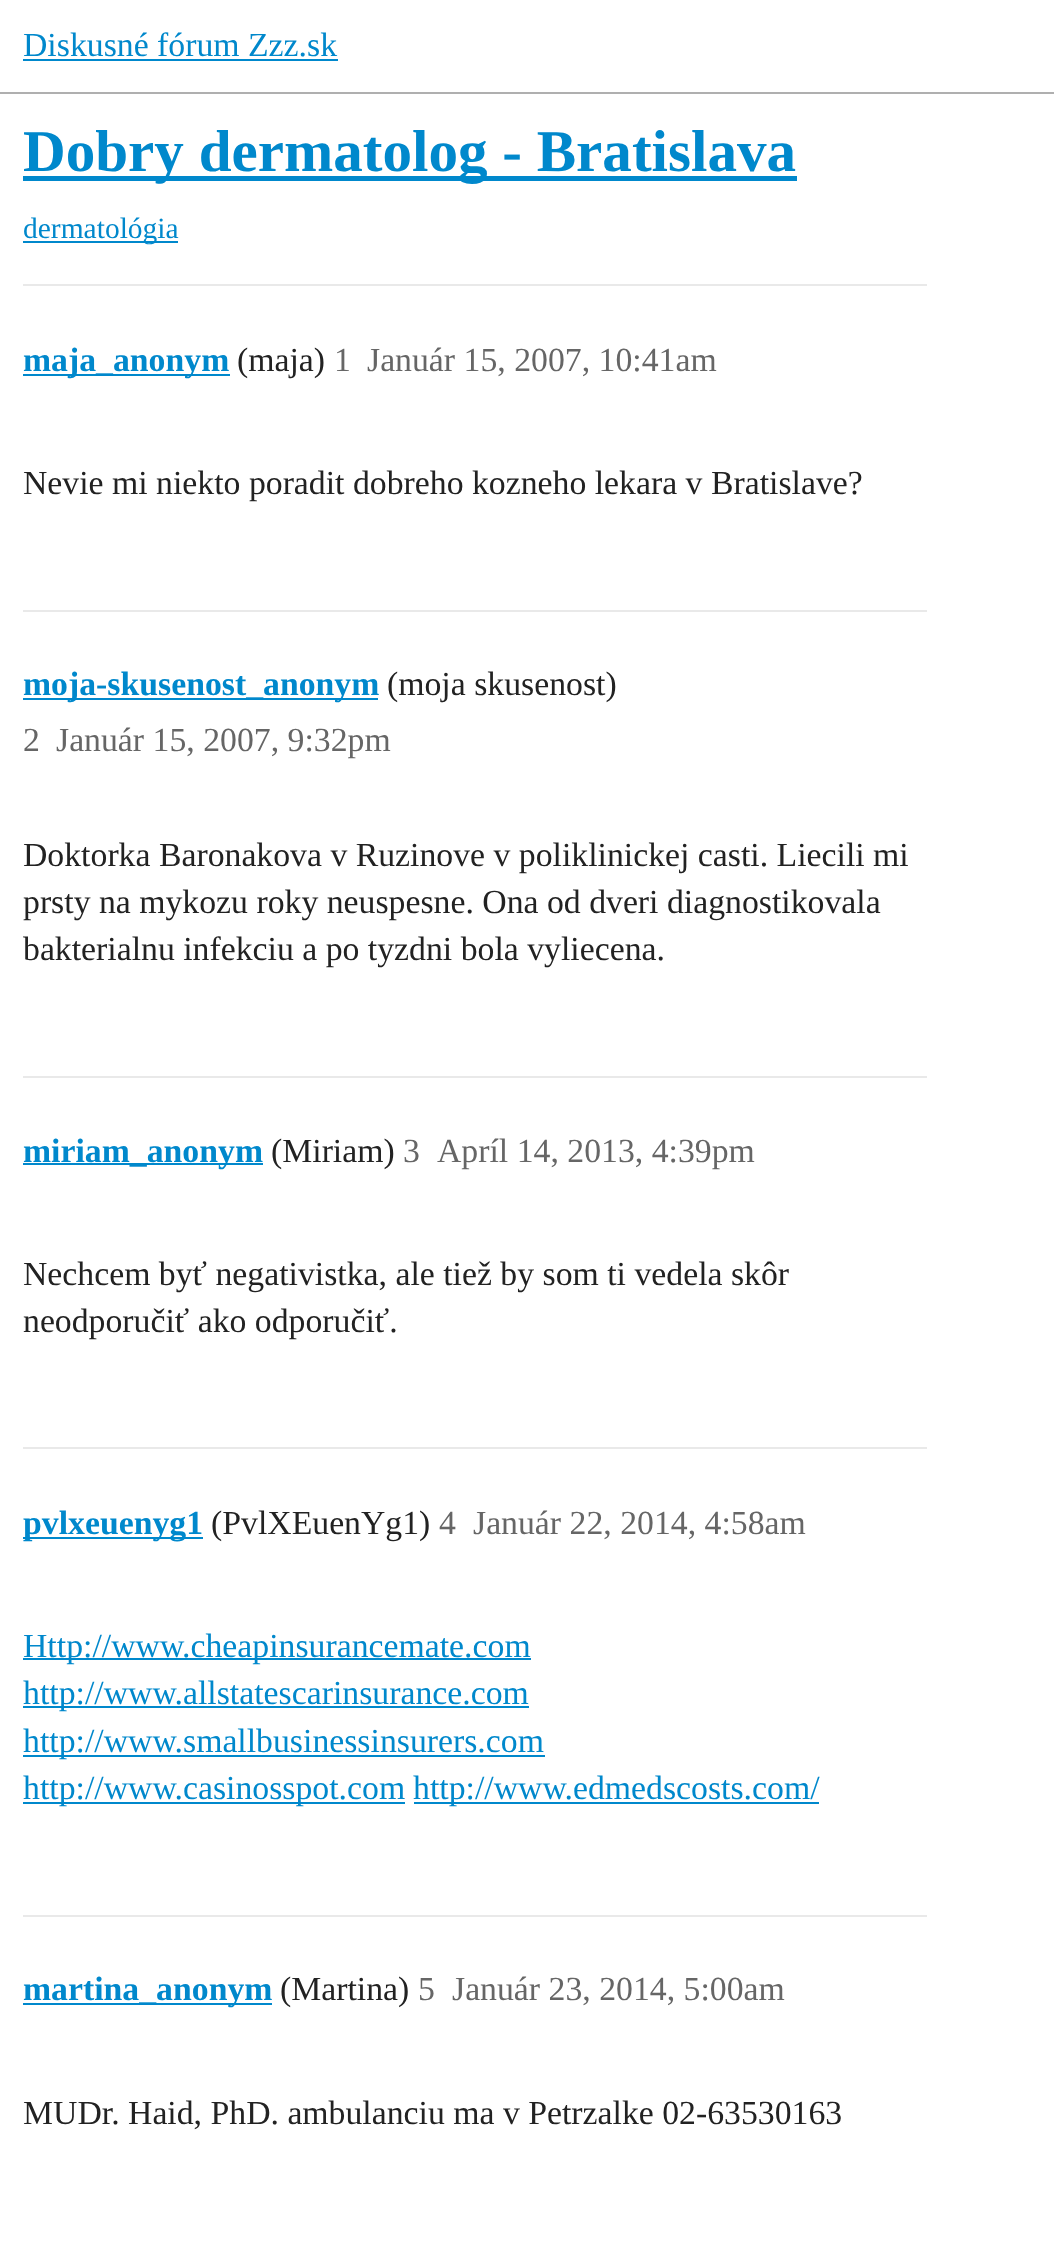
(async () => {
const canvas = document.querySelector("canvas")
canvas.width = 1054
canvas.height = 2258
const c = canvas.getContext("2d")
c.miterLimit = 4
c.fontKerning = "normal"
function T(s,x,y){c.fillText(s,x,y)}
function R(x,y,w,h){c.fillRect(x,y,w,h)}
c.fillStyle="#fff"
R(0,0,1054,2258)
c.fillStyle="#afafaf"
R(0,92,1054,2)
c.font="33.75px Liberation Serif"
c.fillStyle="#08c"
T("Diskusné fórum Zzz.sk",23,56)
R(23,59,315,2)
R(23,176,774,5)
c.font="bold 59.1px Liberation Serif"
T("Dobry dermatolog - Bratislava",23,171)
R(23,241,155,2)
c.font="29.5px Liberation Serif"
T("dermatológia",23,238)
c.fillStyle="#e9e9e9"
R(23,284,904,2)
c.fillStyle="#08c"
R(23,374,207,2)
c.font="bold 33.75px Liberation Serif"
T("maja_anonym",23,371)
c.font="33.75px Liberation Serif"
c.fillStyle="#222"
T("(maja)",237,371)
c.fillStyle="#666"
T("1",334,371)
T("Január 15, 2007, 10:41am",367,371)
c.fillStyle="#222"
T("Nevie mi niekto poradit dobreho kozneho lekara v Bratislave?",23,494)
c.fillStyle="#e9e9e9"
R(23,610,904,2)
c.fillStyle="#08c"
R(23,698,355,2)
c.font="bold 33.75px Liberation Serif"
T("moja-skusenost_anonym",23,695)
c.font="33.75px Liberation Serif"
c.fillStyle="#222"
T("(moja skusenost)",387,695)
c.fillStyle="#666"
T("2",23,751)
T("Január 15, 2007, 9:32pm",56,751)
c.fillStyle="#222"
T("Doktorka Baronakova v Ruzinove v poliklinickej casti. Liecili mi",23,866)
T("prsty na mykozu roky neuspesne. Ona od dveri diagnostikovala",23,913)
T("bakterialnu infekciu a po tyzdni bola vyliecena.",23,960)
c.fillStyle="#e9e9e9"
R(23,1076,904,2)
c.fillStyle="#08c"
R(23,1163,240,2)
c.font="bold 33.75px Liberation Serif"
T("miriam_anonym",23,1162)
c.font="33.75px Liberation Serif"
c.fillStyle="#222"
T("(Miriam)",271,1162)
c.fillStyle="#666"
T("3",403,1162)
T("Apríl 14, 2013, 4:39pm",437,1162)
c.fillStyle="#222"
T("Nechcem byť negativistka, ale tiež by som ti vedela skôr",23,1285)
T("neodporučiť ako odporučiť.",23,1332)
c.fillStyle="#e9e9e9"
R(23,1447,904,2)
c.fillStyle="#08c"
R(23,1537,180,2)
c.font="bold 33.75px Liberation Serif"
T("pvlxeuenyg1",23,1534)
c.font="33.75px Liberation Serif"
c.fillStyle="#222"
T("(PvlXEuenYg1)",211,1534)
c.fillStyle="#666"
T("4",439,1534)
T("Január 22, 2014, 4:58am",473,1534)
c.fillStyle="#08c"
R(23,1658,508,2)
T("Http://www.cheapinsurancemate.com",23,1657)
R(23,1706,506,2)
T("http://www.allstatescarinsurance.com",23,1704)
R(23,1755,522,2)
T("http://www.smallbusinessinsurers.com",23,1752)
R(23,1802,382,2)
T("http://www.casinosspot.com",23,1799)
R(414,1802,405,2)
T("http://www.edmedscosts.com/",413,1799)
c.fillStyle="#e9e9e9"
R(23,1915,904,2)
c.fillStyle="#08c"
R(23,2003,249,2)
c.font="bold 33.75px Liberation Serif"
T("martina_anonym",23,2000)
c.font="33.75px Liberation Serif"
c.fillStyle="#222"
T("(Martina)",280,2000)
c.fillStyle="#666"
T("5",418,2000)
T("Január 23, 2014, 5:00am",452,2000)
c.fillStyle="#222"
T("MUDr. Haid, PhD. ambulanciu ma v Petrzalke 02-63530163",23,2124)
})()
